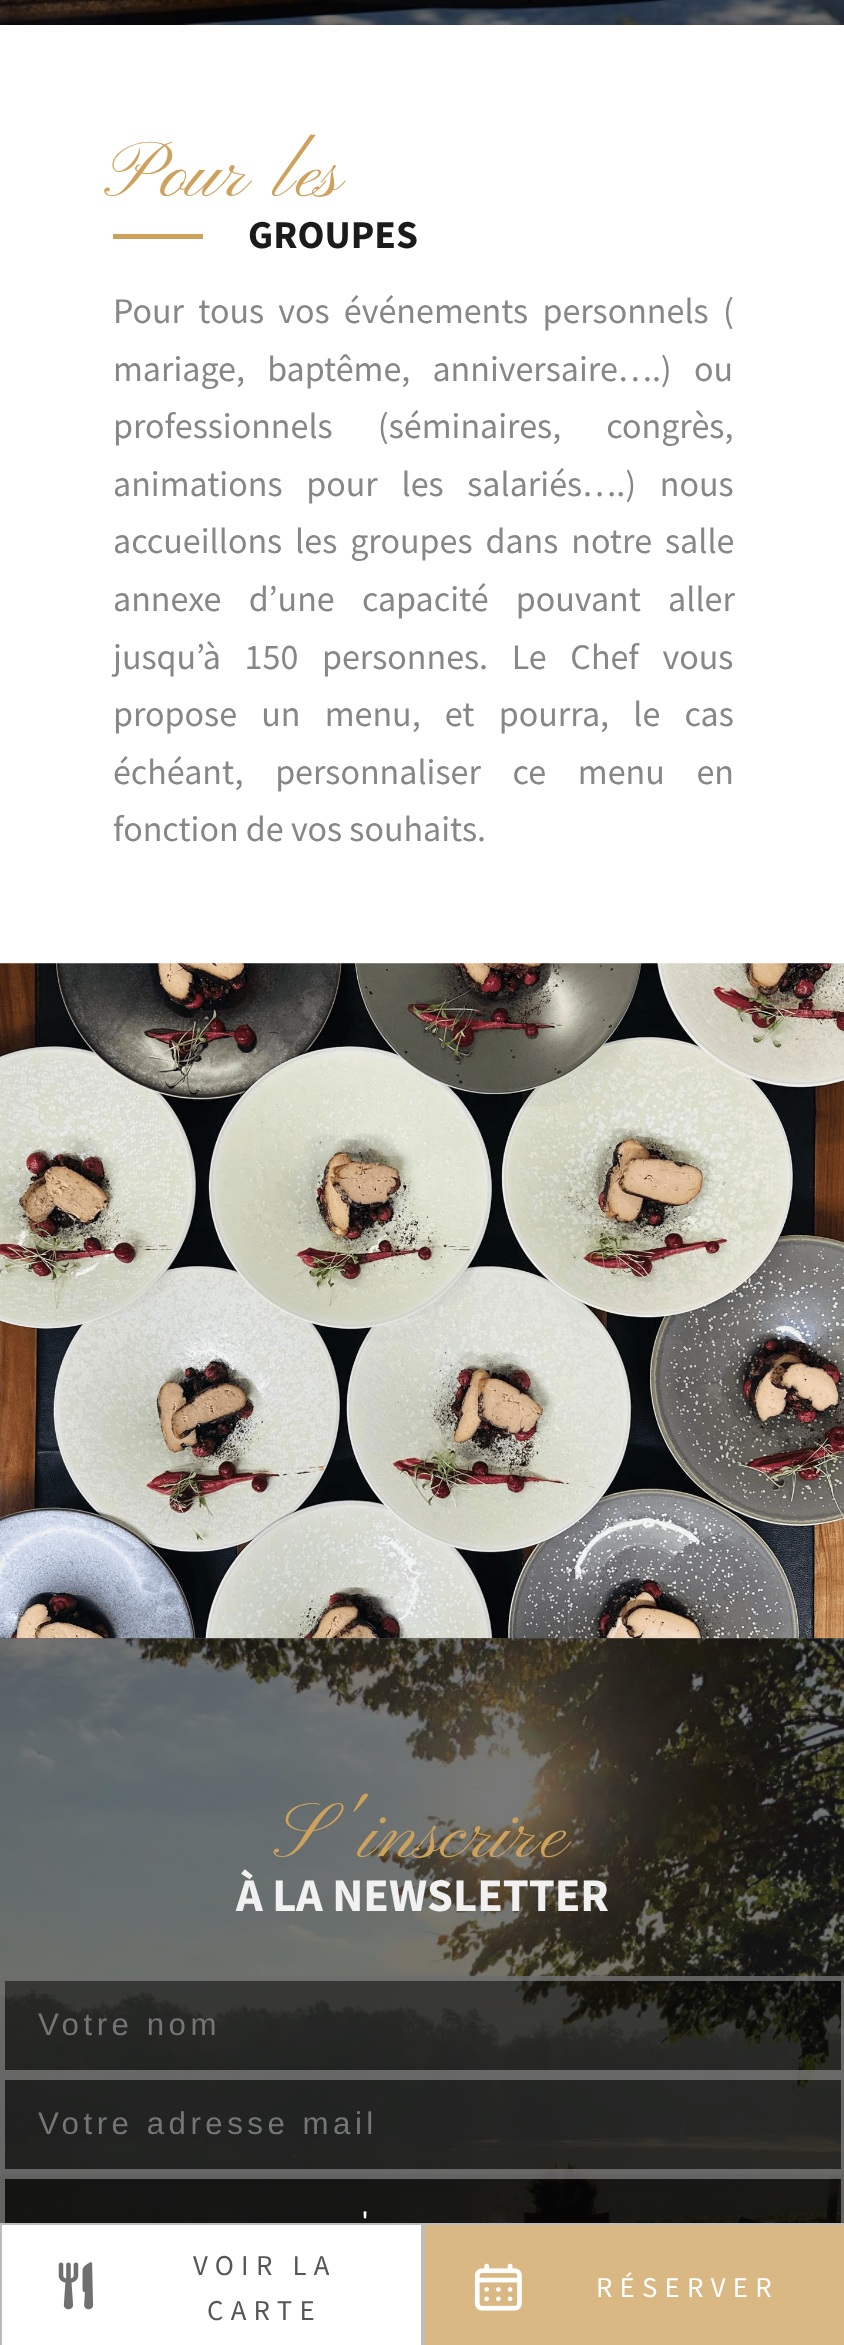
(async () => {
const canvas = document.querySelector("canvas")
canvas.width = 844
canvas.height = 2345
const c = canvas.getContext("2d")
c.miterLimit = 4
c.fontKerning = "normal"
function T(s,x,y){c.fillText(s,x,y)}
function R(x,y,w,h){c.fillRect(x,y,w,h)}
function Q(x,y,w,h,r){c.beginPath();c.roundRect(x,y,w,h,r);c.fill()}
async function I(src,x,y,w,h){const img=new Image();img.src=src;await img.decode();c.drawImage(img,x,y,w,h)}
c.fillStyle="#fff"
R(0,0,844,2345)
await I("1.png",0,0,844,25)
c.font="79px Pinyon Script"
c.fillStyle="#cea25c"
T("Pour les",113,196)
R(113,234,90,5)
c.font="bold 39.5px Source Sans Pro"
c.fillStyle="#1b1b1b"
T("GROUPES",248,248)
c.wordSpacing="7px"
c.font="36px Source Sans Pro"
c.fillStyle="#878787"
T("Pour tous vos événements personnels (",113,323)
c.wordSpacing="15px"
T("mariage, baptême, anniversaire….) ou",113,381)
c.wordSpacing="38px"
T("professionnels (séminaires, congrès,",113,438)
c.wordSpacing="16.5px"
T("animations pour les salariés….) nous",113,496)
c.wordSpacing="5.75px"
T("accueillons les groupes dans notre salle",113,553)
c.wordSpacing="20px"
T("annexe d’une capacité pouvant aller",113,611)
c.wordSpacing="16.5px"
T("jusqu’à 150 personnes. Le Chef vous",113,669)
c.wordSpacing="17px"
T("propose un menu, et pourra, le cas",113,726)
c.wordSpacing="24.5px"
T("échéant, personnaliser ce menu en",113,784)
c.wordSpacing="0px"
T("fonction de vos souhaits.",113,841)
await I("3.png",0,1638,844,585)
await I("2.png",0,963,844,676)
c.fillStyle="#1e1e1e99"
R(0,1638,844,585)
c.font="79px Pinyon Script"
c.fillStyle="#cea25c"
T("S'inscrire",278,1857)
c.font="bold 46.75px Source Sans Pro"
c.fillStyle="#f1f1f1"
T("À LA NEWSLETTER",236,1911)
c.fillStyle="#00000080"
Q(0,1976,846,99,2)
c.beginPath()
c.rect(2.5,1978.5,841,94)
c.strokeStyle="#858585b3"
c.lineWidth=5
c.stroke()
c.letterSpacing="4.5px"
c.font="31.25px Liberation Sans"
c.fillStyle="#757575"
T("Votre nom",38,2035)
c.fillStyle="#00000080"
Q(0,2075,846,99,2)
c.beginPath()
c.rect(2.5,2077.5,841,94)
c.stroke()
c.fillStyle="#757575"
T("Votre adresse mail",38,2134)
c.fillStyle="#000000b3"
Q(0,2174,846,99,2)
c.beginPath()
c.rect(2.5,2176.5,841,94)
c.stroke()
c.fillStyle="#fff"
T("'",362,2233)
R(2,2225,419,48)
c.fillStyle="#bdbbbb"
R(0,2223,844,2)
R(421,2223,4,122)
R(0,2223,2,122)
await I("4.png",58,2262,36,48)
c.letterSpacing="7.25px"
c.font="28.75px Source Sans Pro"
c.fillStyle="#565656"
T("VOIR LA",193,2275)
T("CARTE",207,2320)
c.fillStyle="#dab883"
R(425,2225,419,120)
await I("5.png",474,2263,48,48)
c.fillStyle="#fff"
T("RÉSERVER",596,2297)
})()
